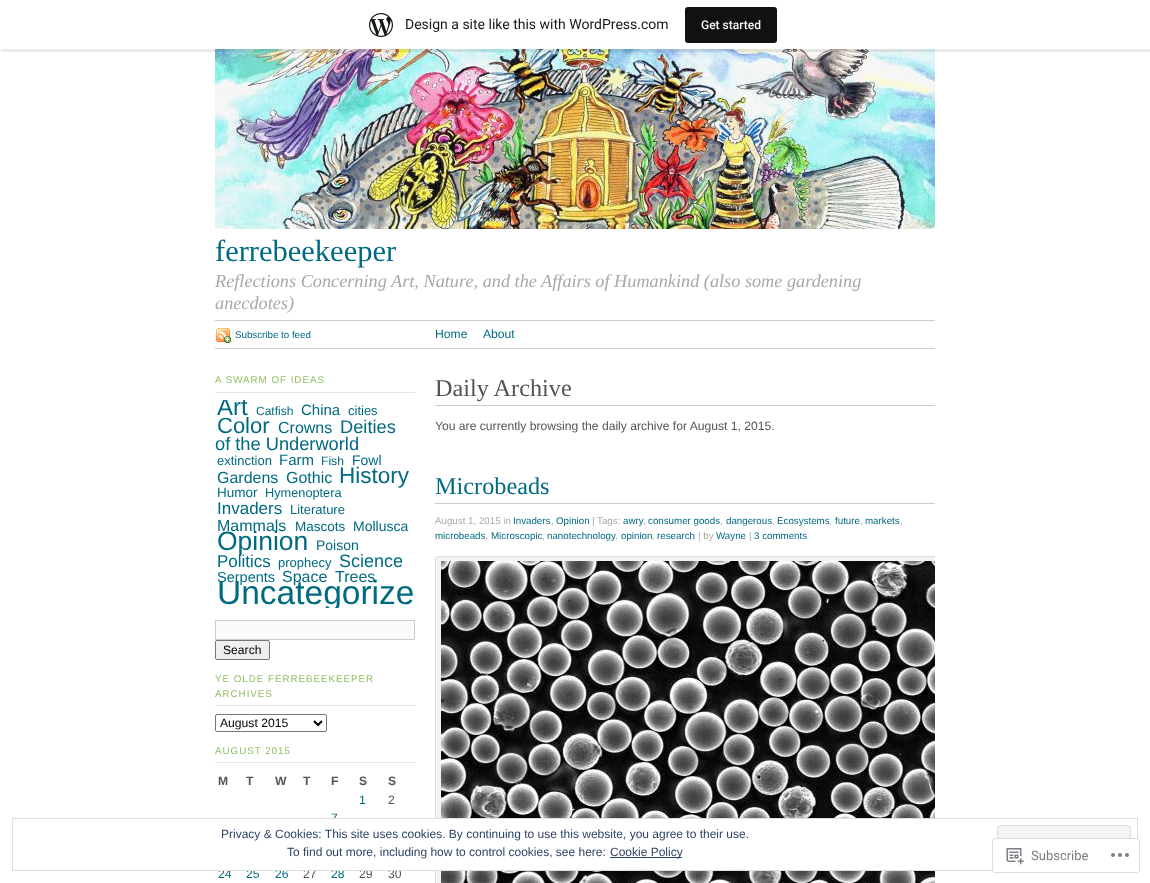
(async () => {
const canvas = document.querySelector("canvas")
canvas.width = 1150
canvas.height = 883
const c = canvas.getContext("2d")
c.miterLimit = 4
c.fontKerning = "normal"
function T(s,x,y){c.fillText(s,x,y)}
function R(x,y,w,h){c.fillRect(x,y,w,h)}
function Q(x,y,w,h,r){c.beginPath();c.roundRect(x,y,w,h,r);c.fill()}
async function I(src,x,y,w,h){const img=new Image();img.src=src;await img.decode();c.drawImage(img,x,y,w,h)}
let path
c.fillStyle="#fff"
R(0,0,1150,883)
await I("2.png",215,49,720,180)
c.fillStyle="#00000014"
path = new Path2D("M1 49v3h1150v-49h-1v46z")
c.fill(path)
await I("1.png",369,13,24,24)
c.font="14px Roboto"
c.fillStyle="#171717"
T("Design a site like this with WordPress.com",405,29)
c.fillStyle="#111"
Q(685,7,92,36,3)
c.font="500 12px Roboto"
c.fillStyle="#f6f7f7"
T("Get started",701,29)
c.fillStyle="#ccc"
R(215,320,720,1)
c.font="30.5px Liberation Serif"
c.fillStyle="#006a80"
T("ferrebeekeeper",215,261)
c.font="italic 18.25px Liberation Serif"
c.fillStyle="#a8a8a8"
T("Reflections Concerning Art, Nature, and the Affairs of Humankind (also some gardening",215,287)
T("anecdotes)",215,309)
c.fillStyle="#ccc"
R(215,348,720,1)
await I("3.png",216,328,15,15)
c.font="9.75px Liberation Sans"
c.fillStyle="#006a80"
T("Subscribe to feed",235,338)
c.font="12.15px Liberation Sans"
T("Home",435,338)
T("About",483,338)
c.fillStyle="#e5e5e5"
R(215,392,200,1)
c.letterSpacing="1px"
c.font="9.75px Liberation Sans"
c.fillStyle="#8fbf60"
T("A SWARM OF IDEAS",215,383)
c.save()
c.beginPath()
c.rect(215,400,200,208)
c.clip()
c.letterSpacing="0px"
c.font="24px Liberation Sans"
c.fillStyle="#006a80"
T("Art",217,415)
c.restore()
c.letterSpacing="0px"
c.font="12px Liberation Sans"
c.fillStyle="#006a80"
T("Catfish",256,415)
c.font="15px Liberation Sans"
T("China",301,415)
c.font="13px Liberation Sans"
T("cities",348,415)
c.font="22px Liberation Sans"
T("Color",217,433)
c.font="16px Liberation Sans"
T("Crowns",278,433)
c.font="18.25px Liberation Sans"
T("Deities",340,433)
T("of the Underworld",215,450)
c.font="13px Liberation Sans"
T("extinction",217,465)
c.font="15px Liberation Sans"
T("Farm",279,465)
c.font="12.15px Liberation Sans"
T("Fish",321,465)
c.font="14px Liberation Sans"
T("Fowl",352,465)
c.font="16px Liberation Sans"
T("Gardens",217,483)
T("Gothic",286,483)
c.font="22.5px Liberation Sans"
T("History",339,483)
c.font="13.5px Liberation Sans"
T("Humor",217,497)
c.font="12.75px Liberation Sans"
T("Hymenoptera",265,497)
c.font="17px Liberation Sans"
T("Invaders",217,514)
c.font="13px Liberation Sans"
T("Literature",290,514)
c.font="16px Liberation Sans"
T("Mammals",217,531)
c.font="13.5px Liberation Sans"
T("Mascots",295,531)
c.font="14px Liberation Sans"
T("Mollusca",353,531)
c.font="26.5px Liberation Sans"
T("Opinion",217,550)
c.font="14px Liberation Sans"
T("Poison",316,550)
c.font="17px Liberation Sans"
T("Politics",217,567)
c.font="13px Liberation Sans"
T("prophecy",278,567)
c.font="18px Liberation Sans"
T("Science",339,567)
c.font="14.5px Liberation Sans"
T("Serpents",217,582)
c.font="16px Liberation Sans"
T("Space",282,582)
T("Trees",335,582)
c.save()
c.beginPath()
c.rect(215,400,200,208)
c.clip()
c.font="33.5px Liberation Sans"
T("Uncategorize",217,604)
c.restore()
c.fillStyle="#fafafa"
c.beginPath()
c.rect(215.5,620.5,199,19)
c.fill()
c.strokeStyle="#ccc"
c.stroke()
c.fillStyle="#efefef"
c.beginPath()
c.roundRect(215.5,640.5,54,19,1.5)
c.fill()
c.strokeStyle="#767676"
c.stroke()
c.font="12.15px Liberation Sans"
c.fillStyle="#000"
T("Search",223,654)
c.fillStyle="#e5e5e5"
R(215,705,200,1)
c.letterSpacing="1px"
c.font="9.75px Liberation Sans"
c.fillStyle="#8fbf60"
T("YE OLDE FERREBEEKEEPER",215,682)
T("ARCHIVES",215,697)
c.beginPath()
c.roundRect(215.5,714.5,111,17,1.5)
c.stroke()
path = new Path2D("M314 721l4 4l4-4")
c.strokeStyle="#000"
c.lineWidth=2
c.stroke(path)
c.letterSpacing="0px"
c.font="12.15px Liberation Sans"
c.fillStyle="#000"
T("August 2015",220,727)
c.fillStyle="#e5e5e5"
R(215,762,200,1)
c.letterSpacing="1px"
c.font="9.75px Liberation Sans"
c.fillStyle="#8fbf60"
T("AUGUST 2015",215,754)
c.letterSpacing="0px"
c.font="bold 12.15px Liberation Sans"
c.fillStyle="#545454"
T("M",218,785)
T("T",246,785)
T("W",275,785)
T("T",303,785)
T("F",331,785)
T("S",359,785)
T("S",388,785)
c.font="12.15px Liberation Sans"
c.fillStyle="#006a80"
T("1",359,804)
c.fillStyle="#545454"
T("2",388,804)
c.fillStyle="#006a80"
T("7",331,822)
T("24",218,878)
T("25",246,878)
T("26",275,878)
c.fillStyle="#545454"
T("27",303,878)
c.fillStyle="#006a80"
T("28",331,878)
c.fillStyle="#545454"
T("29",359,878)
T("30",388,878)
c.fillStyle="#ccc"
R(435,405,500,1)
c.font="24.25px Liberation Serif"
c.fillStyle="#545454"
T("Daily Archive",435,396)
c.font="12.15px Liberation Sans"
T("You are currently browsing the daily archive for August 1, 2015.",435,430)
c.fillStyle="#ccc"
R(435,503,500,1)
c.font="24.25px Liberation Serif"
c.fillStyle="#006a80"
T("Microbeads",435,494)
c.font="9.75px Liberation Sans"
c.fillStyle="#a8a8a8"
T("August 1, 2015 in",435,524)
c.fillStyle="#006a80"
T("Invaders",513,524)
c.fillStyle="#a8a8a8"
T(",",551,524)
c.fillStyle="#006a80"
T("Opinion",556,524)
c.fillStyle="#a8a8a8"
T("| Tags:",592,524)
c.fillStyle="#006a80"
T("awry",623,524)
T("consumer goods",648,524)
T("dangerous",726,524)
T("Ecosystems",777,524)
T("future",835,524)
T("markets",865,524)
c.fillStyle="#a8a8a8"
T(",",643,524)
T(",",720,524)
T(",",772,524)
T(",",829,524)
T(",",860,524)
T(",",900,524)
c.fillStyle="#006a80"
T("microbeads",435,539)
c.fillStyle="#a8a8a8"
T(",",485,539)
c.fillStyle="#006a80"
T("Microscopic",491,539)
c.fillStyle="#a8a8a8"
T(",",542,539)
c.fillStyle="#006a80"
T("nanotechnology",547,539)
T("opinion",621,539)
T("research",657,539)
c.fillStyle="#a8a8a8"
T("| by",698,539)
c.fillStyle="#006a80"
T("Wayne",716,539)
c.fillStyle="#a8a8a8"
T("|",749,539)
c.fillStyle="#006a80"
T("3 comments",754,539)
c.fillStyle="#a8a8a8"
T(",",615,539)
T(",",652,539)
c.fillStyle="#f3f3f3"
path = new Path2D("M438 556h497v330h-497c-1.5 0-3-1.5-3-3v-324c0-1.5 1.5-3 3-3z")
c.fill(path)
c.save()
c.beginPath()
c.rect(435,373,500,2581)
c.clip()
c.beginPath()
c.roundRect(435.5,556.5,511,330,2.5)
c.strokeStyle="#ddd"
c.lineWidth=1
c.stroke()
c.restore()
await I("4.png",441,561,494,322)
c.fillStyle="#fff"
R(219,819,716,51)
c.strokeStyle="#dedede"
c.lineWidth=1
c.strokeRect(12.5,818.5,1125,52)
c.font="12px Liberation Sans"
c.fillStyle="#2e4467"
T("Privacy & Cookies: This site uses cookies. By continuing to use this website, you agree to their use.",221,838)
c.fillStyle="#f3f3f3"
c.beginPath()
c.roundRect(997.5,825.5,133,38,2.5)
c.fill()
c.stroke()
c.fillStyle="#2e4467"
T("To find out more, including how to control cookies, see here:",287,856)
R(610,857,72,1)
T("Cookie Policy",610,856)
c.fillStyle="#fffffffa"
Q(992,838,148,35,3)
c.beginPath()
c.roundRect(992.5,838.5,147,34,2.5)
c.strokeStyle="#dcdcdefa"
c.stroke()
await I("5.png",1006,848,18,17)
c.font="13px Roboto"
c.fillStyle="#7a7e84"
T("Subscribe",1031,860)
await I("6.png",1111,853,18,4)
})()
